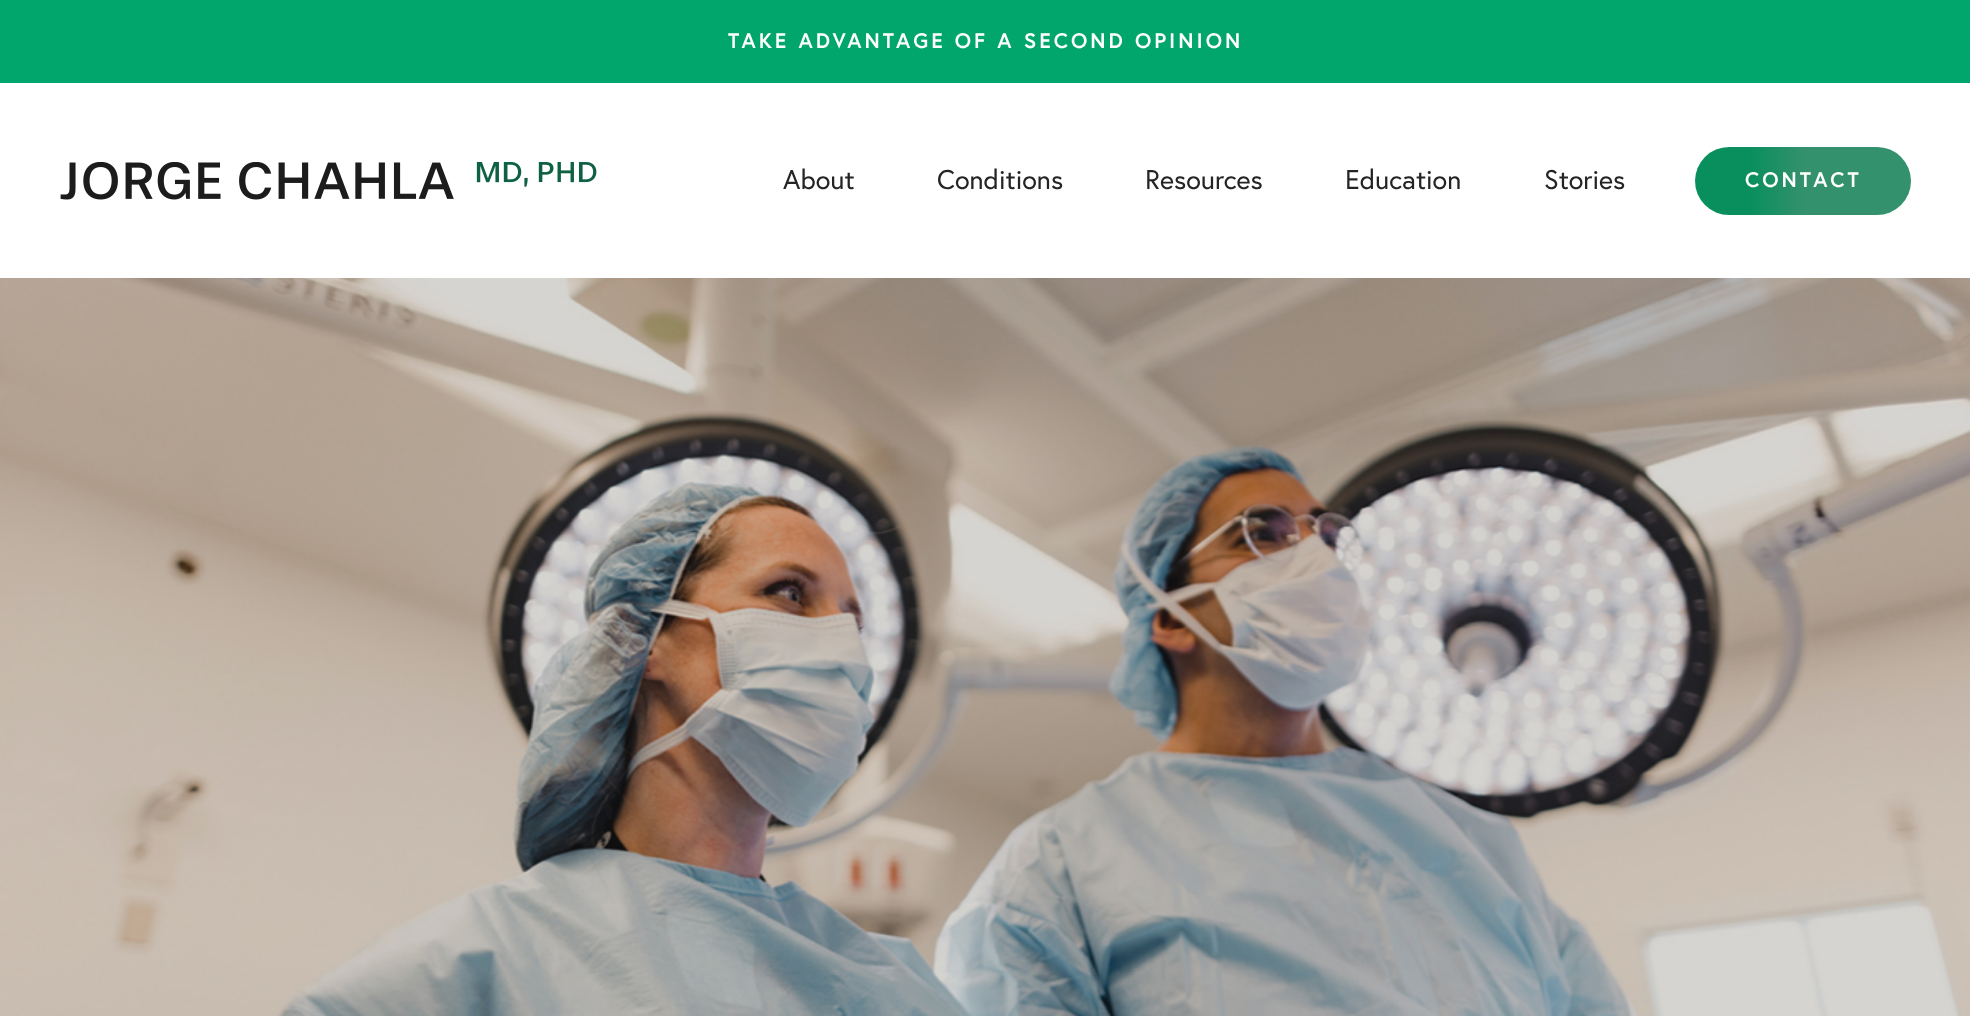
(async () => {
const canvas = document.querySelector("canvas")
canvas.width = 1970
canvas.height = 1016
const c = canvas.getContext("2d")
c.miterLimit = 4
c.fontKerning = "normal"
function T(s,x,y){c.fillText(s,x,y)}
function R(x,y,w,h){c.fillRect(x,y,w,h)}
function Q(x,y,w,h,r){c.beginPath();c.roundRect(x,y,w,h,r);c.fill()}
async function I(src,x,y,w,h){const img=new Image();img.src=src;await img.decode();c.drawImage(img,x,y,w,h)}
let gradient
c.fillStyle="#fff"
R(0,0,1970,1016)
c.fillStyle="#00a66c"
R(0,0,1970,83)
c.letterSpacing="3px"
c.font="bold 21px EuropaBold"
c.fillStyle="#fff"
T("TAKE ADVANTAGE OF A SECOND OPINION",728,48)
await I("1.png",60,162,537,38)
c.letterSpacing="0px"
c.font="27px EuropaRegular"
c.fillStyle="#242424"
T("About",783,189)
T("Conditions",937,189)
T("Resources",1145,189)
T("Education",1345,189)
T("Stories",1544,189)
gradient = c.createLinearGradient(1695,181,1911,181)
gradient.addColorStop(.25,"#088f5d")
gradient.addColorStop(.5,"#33916d")
c.fillStyle = gradient
Q(1695,147,216,68,34)
c.letterSpacing="3px"
c.font="bold 21px EuropaBold"
c.fillStyle="#fff"
T("CONTACT",1745,187)
await I("2.png",0,278,1970,738)
})()
